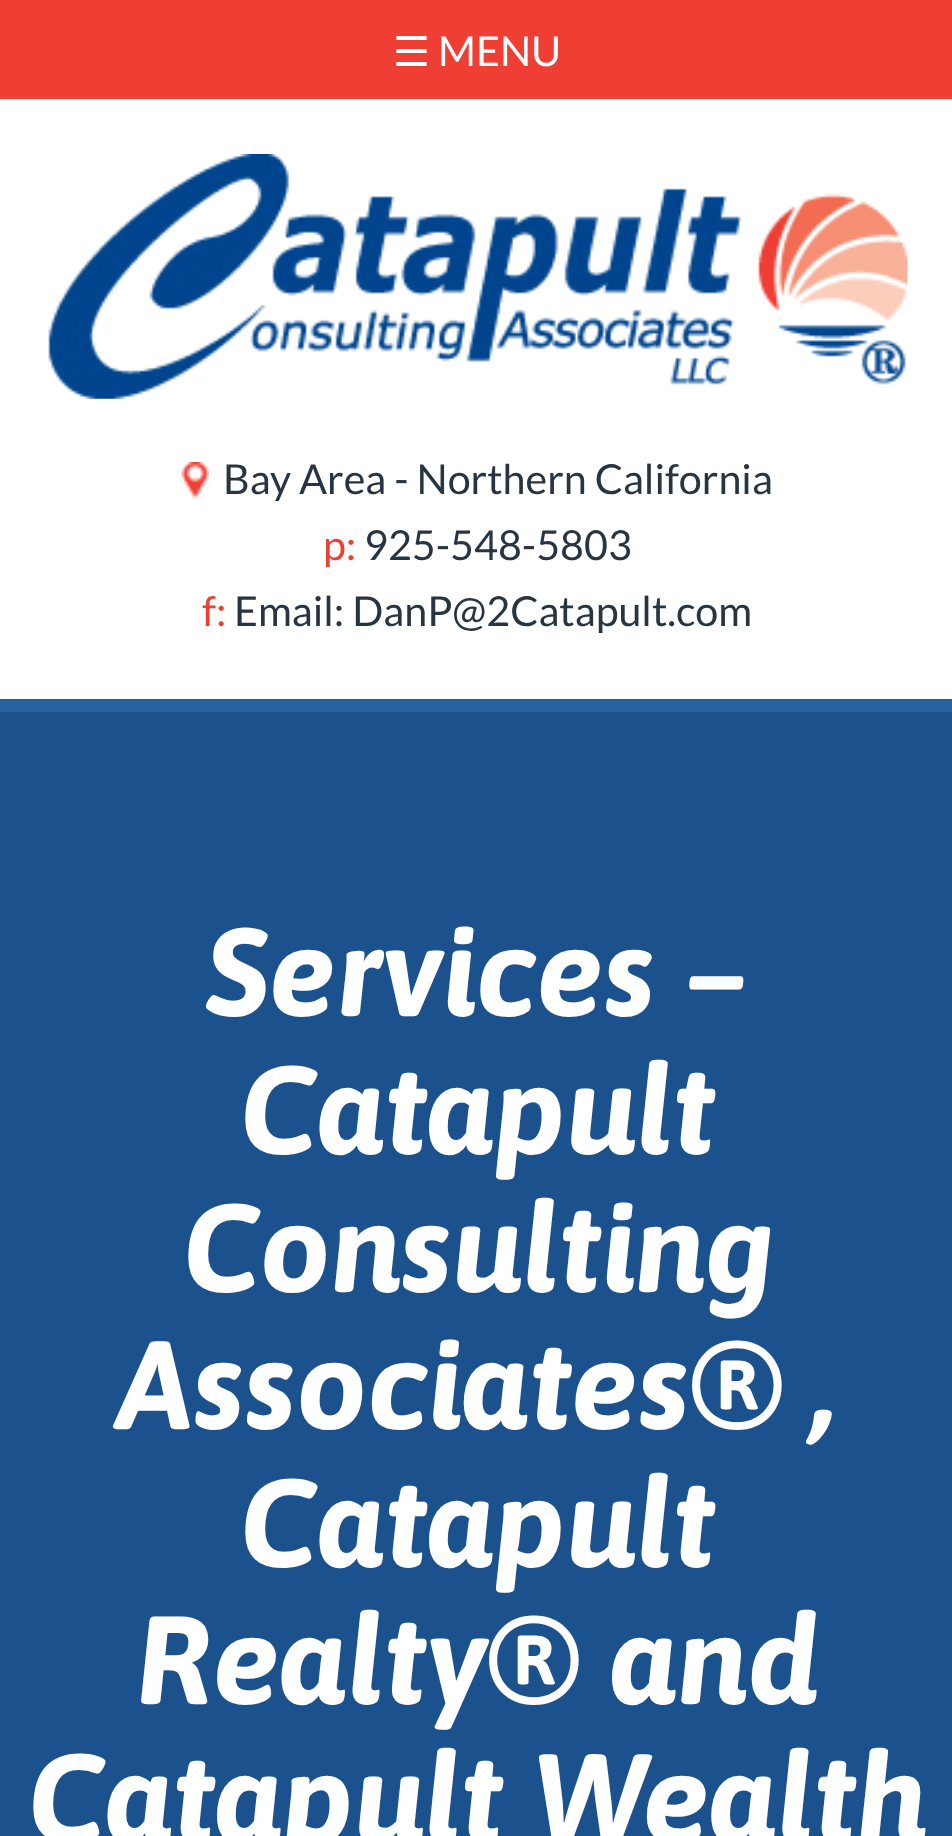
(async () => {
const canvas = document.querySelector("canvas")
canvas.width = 952
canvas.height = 1836
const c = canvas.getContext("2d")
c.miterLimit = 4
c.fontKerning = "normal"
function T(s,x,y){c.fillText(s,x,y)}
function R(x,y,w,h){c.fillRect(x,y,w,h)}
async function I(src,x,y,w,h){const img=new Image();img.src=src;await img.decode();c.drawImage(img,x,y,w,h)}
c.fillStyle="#fff"
R(0,0,952,1836)
c.fillStyle="#ef3e34"
R(0,0,952,99)
c.font="41.25px DejaVu Sans"
c.fillStyle="#fff"
T("☰",393,66)
c.font="41.25px Lato"
T("MENU",438,66)
await I("1.png",48,154,860,245)
await I("2.png",181,462,28,37)
c.fillStyle="#273442"
T("Bay Area - Northern California",223,494)
c.fillStyle="#ef3e34"
T("p:",323,560)
c.fillStyle="#273442"
T("925-548-5803",364,560)
c.fillStyle="#ef3e34"
T("f:",202,626)
c.fillStyle="#273442"
T("Email: DanP@2Catapult.com",234,626)
c.fillStyle="#1b528d"
R(0,712,952,1124)
c.fillStyle="#28619e"
R(0,699,952,13)
c.font="italic bold 125px Asap"
c.fillStyle="#fff"
T("Services –",206,1016)
T("Catapult",239,1154)
T("Consulting",182,1292)
T("Associates® ,",116,1429)
T("Catapult",239,1567)
T("Realty® and",136,1704)
T("Catapult Wealth",27,1842)
})()
